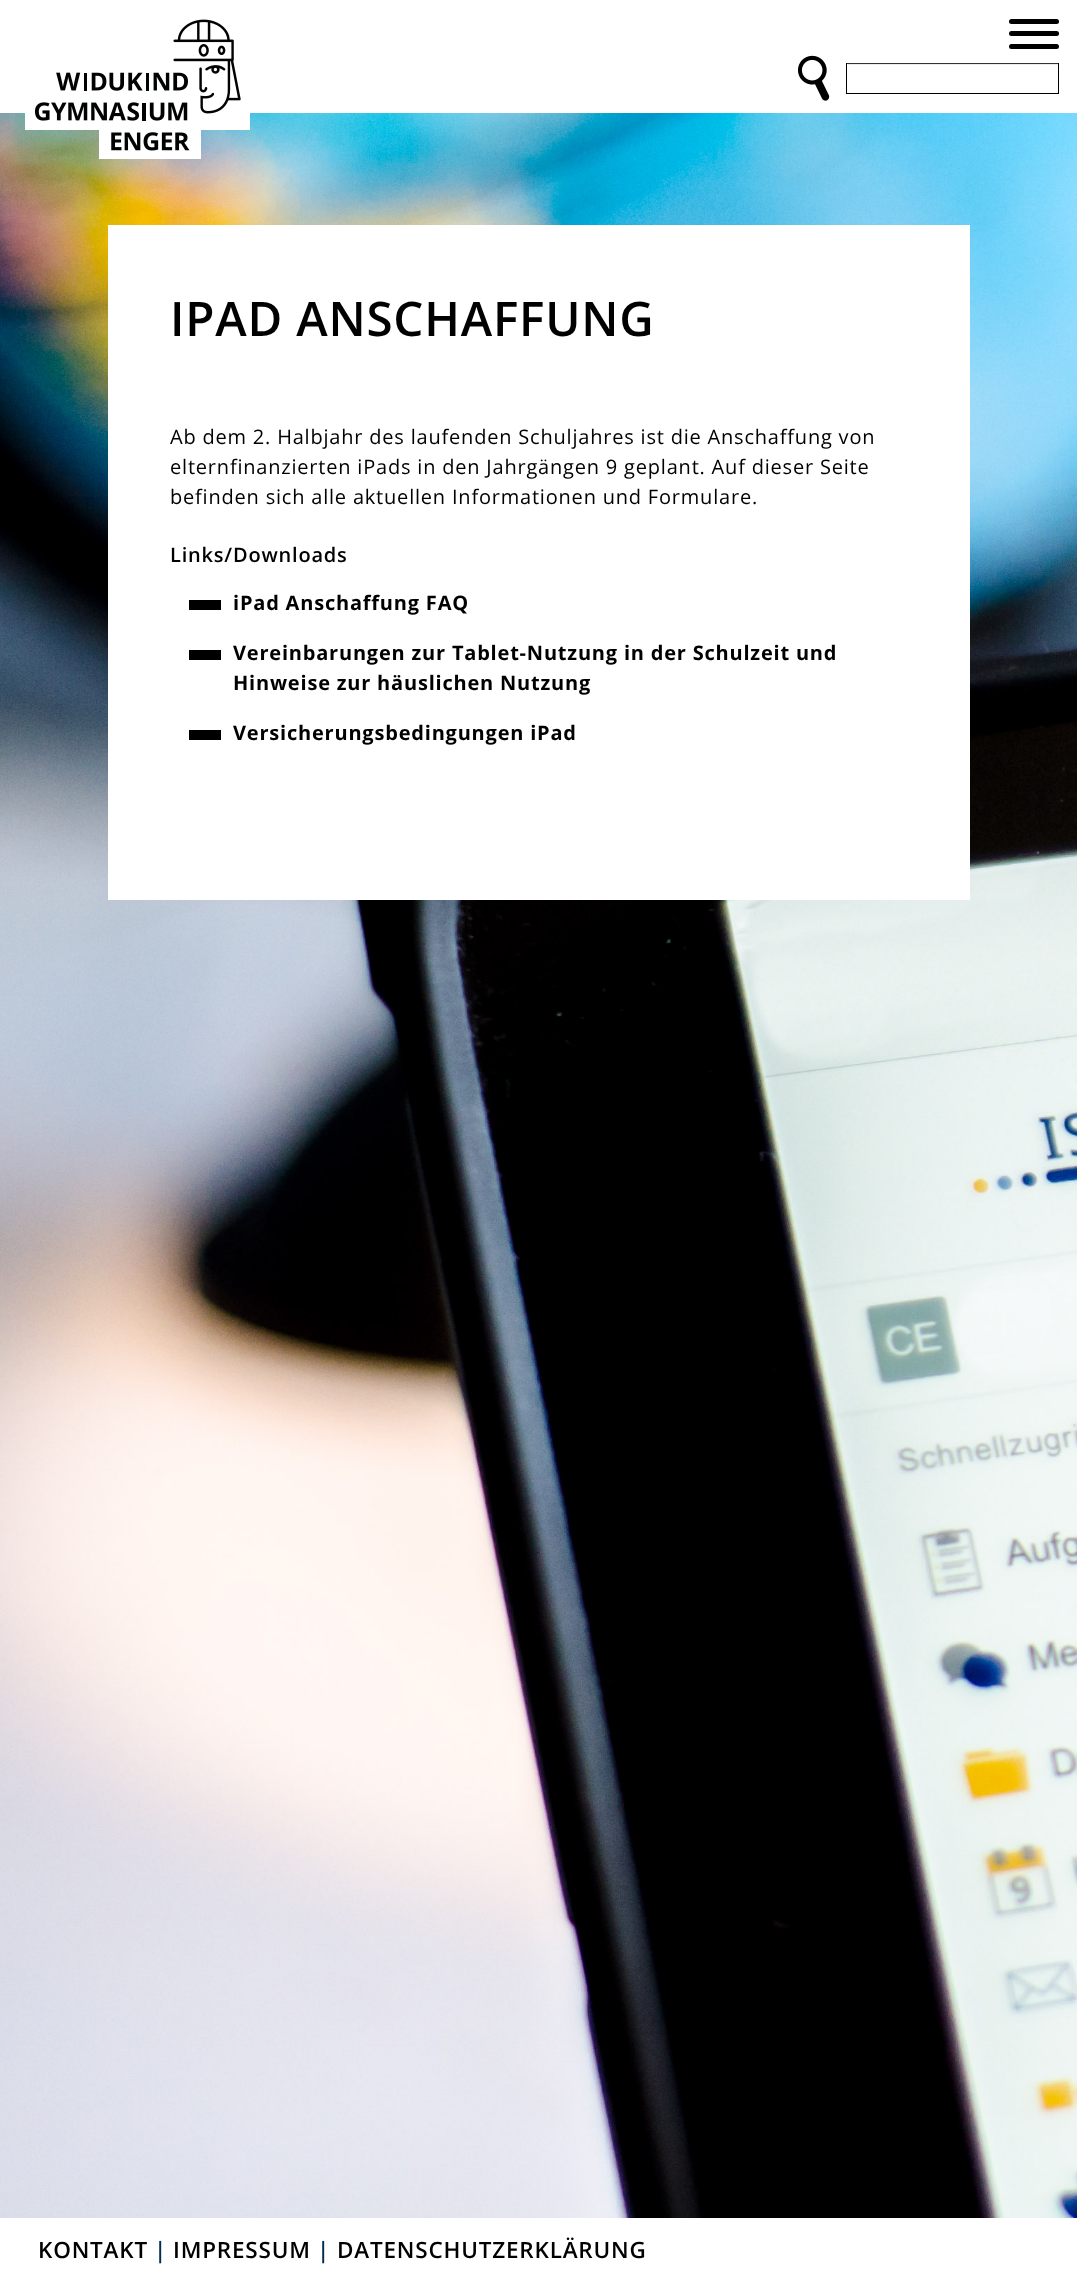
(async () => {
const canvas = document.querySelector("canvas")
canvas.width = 1077
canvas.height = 2279
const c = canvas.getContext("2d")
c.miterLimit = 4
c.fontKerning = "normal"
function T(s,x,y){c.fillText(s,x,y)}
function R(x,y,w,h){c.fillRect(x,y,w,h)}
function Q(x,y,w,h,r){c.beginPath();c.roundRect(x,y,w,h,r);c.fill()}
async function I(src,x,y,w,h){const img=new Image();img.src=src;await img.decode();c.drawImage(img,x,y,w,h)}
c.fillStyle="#fff"
R(0,0,1077,2279)
await I("3.png",0,113,1077,2105)
await I("1.png",25,19,225,140)
c.fillStyle="#000"
Q(1009,31,50,5,2.5)
Q(1009,19,50,5,2.5)
Q(1009,44,50,5,2.5)
await I("2.png",798,55,32,46)
c.fillStyle="#ececec"
R(848,64,210,1)
c.fillStyle="#333"
R(846,63,213,1)
c.fillStyle="#000"
R(1058,63,1,31)
R(846,93,213,1)
R(846,63,1,31)
c.fillStyle="#fff"
R(108,225,862,675)
c.letterSpacing="0.8px"
c.font="600 47.5px Open Sans"
c.fillStyle="#000"
T("IPAD ANSCHAFFUNG",170,336)
c.font="20px Open Sans"
T("Ab dem 2. Halbjahr des laufenden Schuljahres ist die Anschaffung von",170,444)
T("elternfinanzierten iPads in den Jahrgängen 9 geplant. Auf dieser Seite",170,474)
T("befinden sich alle aktuellen Informationen und Formulare.",170,504)
c.font="600 20px Open Sans"
T("Links/Downloads",170,562)
R(189,600,32,10)
c.font="bold 20px Open Sans"
T("iPad Anschaffung FAQ",233,610)
R(189,650,32,10)
T("Vereinbarungen zur Tablet-Nutzung in der Schulzeit und",233,660)
T("Hinweise zur häuslichen Nutzung",233,690)
R(189,730,32,10)
T("Versicherungsbedingungen iPad",233,740)
c.font="600 22.5px Open Sans"
T("KONTAKT",38,2258)
c.fillStyle="#012b51"
T("|",154,2258)
c.fillStyle="#000"
T("IMPRESSUM",173,2258)
c.fillStyle="#012b51"
T("|",317,2258)
c.fillStyle="#000"
T("DATENSCHUTZERKLÄRUNG",337,2258)
})()
